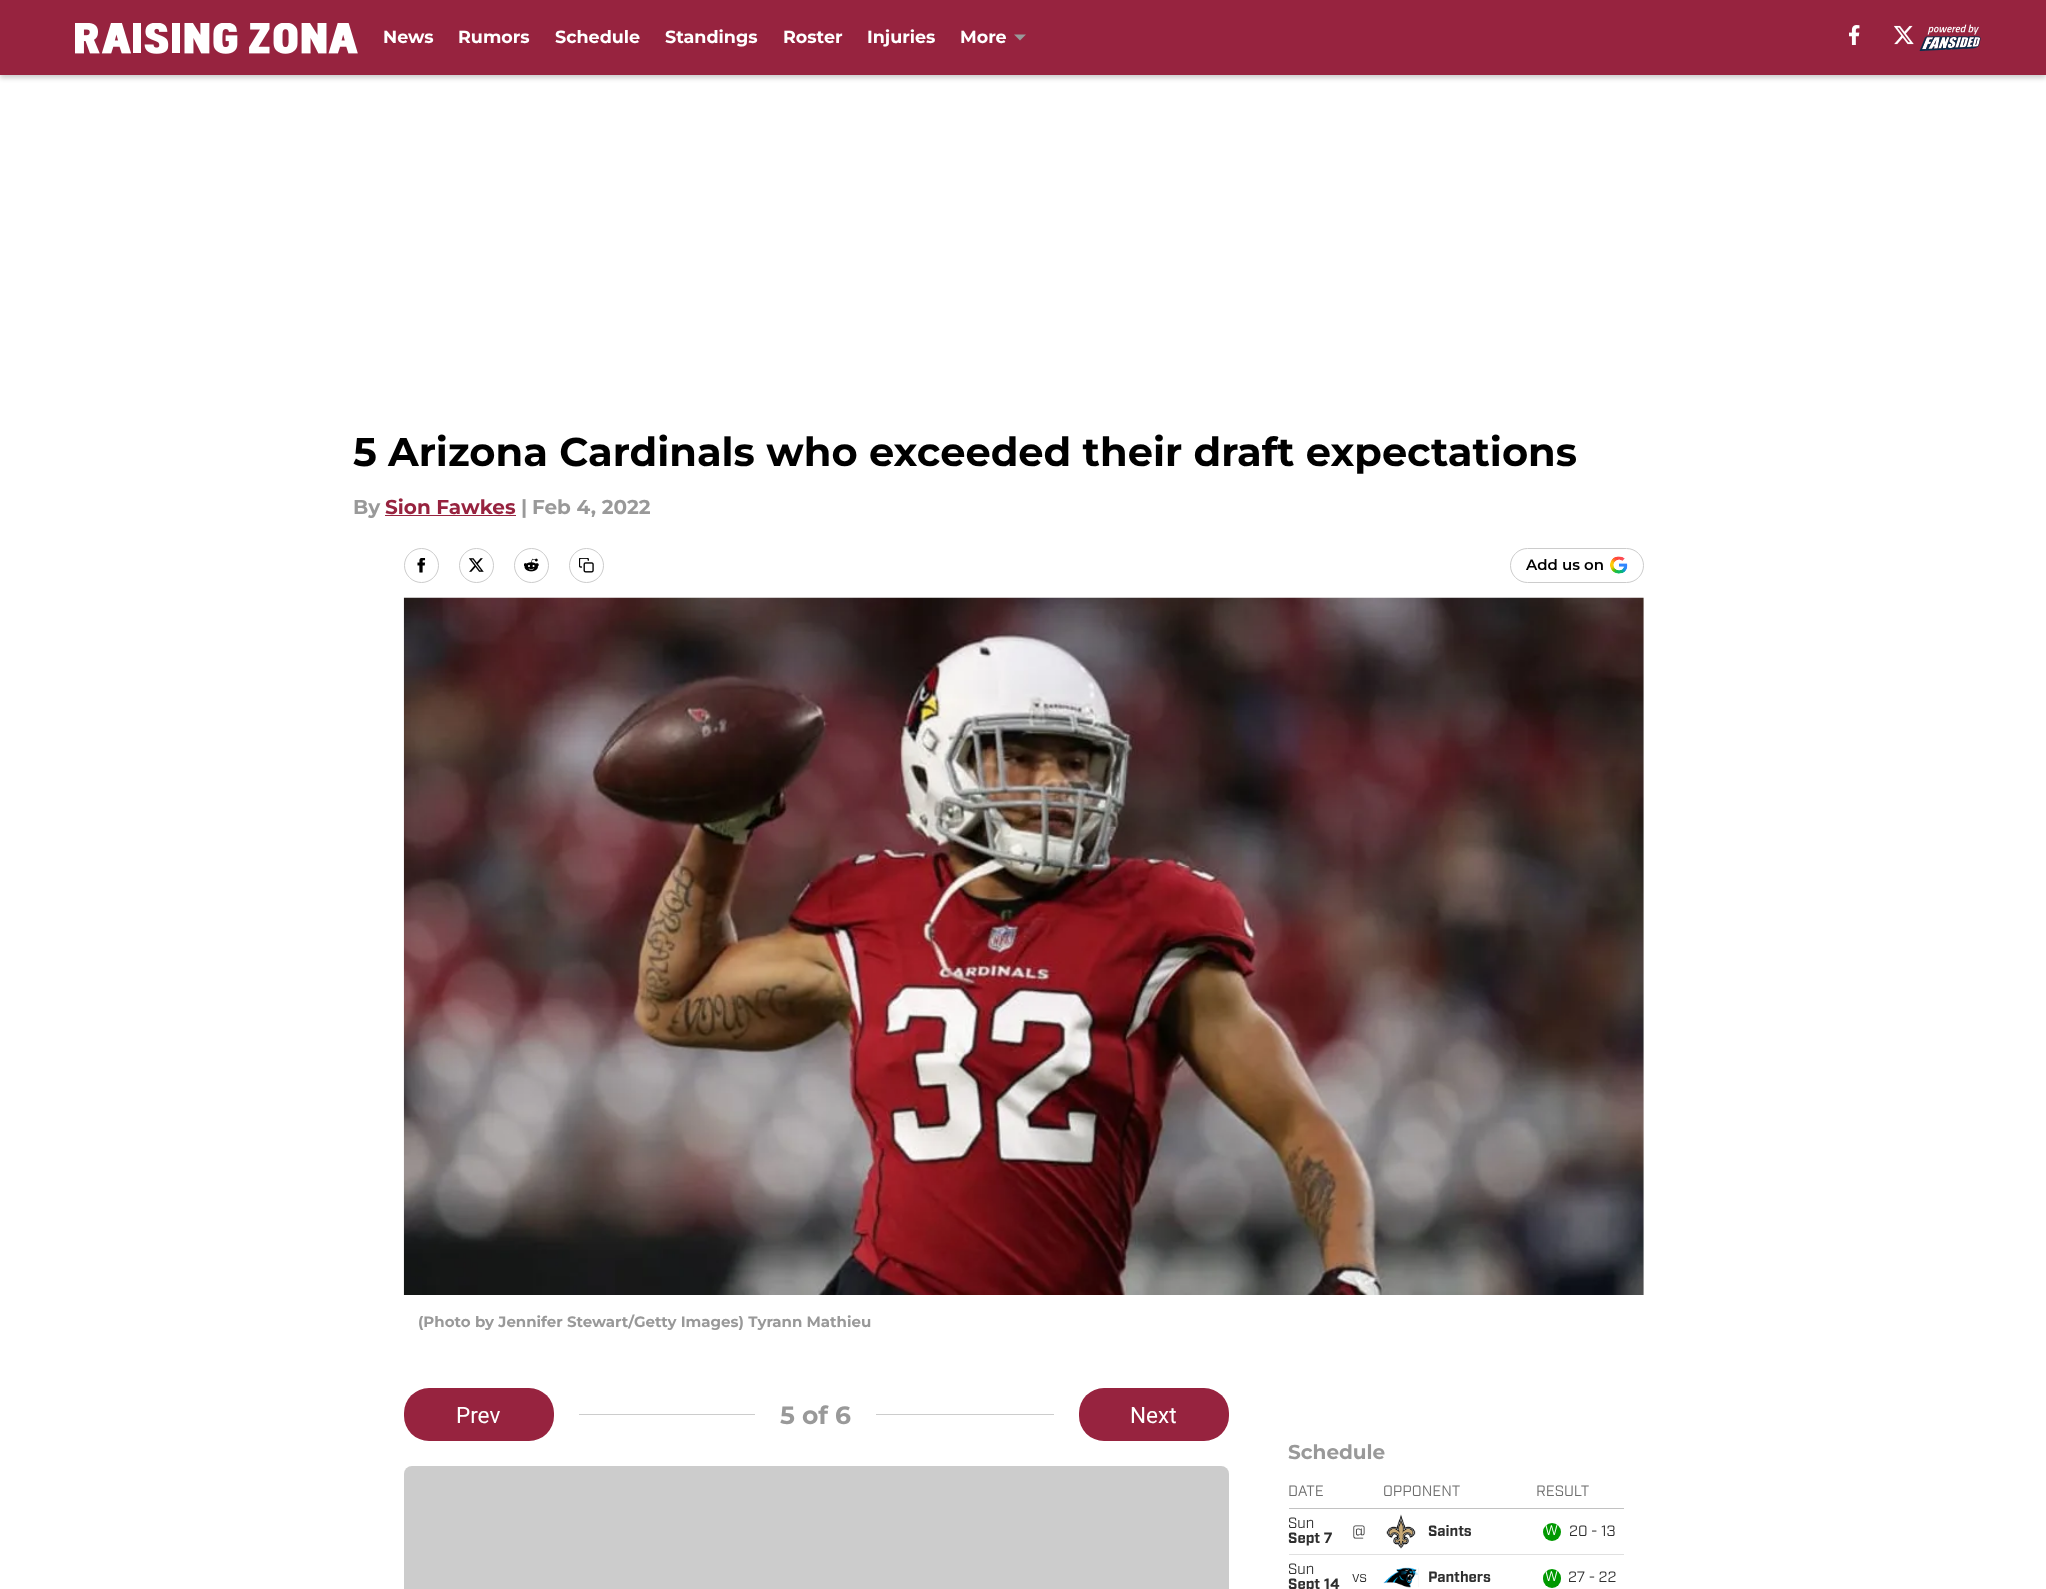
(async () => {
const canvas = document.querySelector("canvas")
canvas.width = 2046
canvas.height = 1589
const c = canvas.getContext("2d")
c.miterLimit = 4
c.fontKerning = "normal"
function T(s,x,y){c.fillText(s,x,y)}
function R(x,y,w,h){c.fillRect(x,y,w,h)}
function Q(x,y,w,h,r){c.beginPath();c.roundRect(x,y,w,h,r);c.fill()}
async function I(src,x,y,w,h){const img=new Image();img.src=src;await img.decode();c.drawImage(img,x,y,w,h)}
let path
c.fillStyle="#fff"
R(0,0,2046,1589)
c.fillStyle="#00000033"
c.filter="blur(2.5px)"
c.beginPath()
c.rect(0,3,2046,75)
c.fill()
c.filter="none"
c.fillStyle="#97233f"
R(0,0,2046,75)
await I("1.png",75,23,283,31)
c.font="100 17.5px 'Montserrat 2'"
c.fillStyle="#fff"
T("News",383,43)
T("Rumors",458,43)
T("Schedule",555,43)
T("Standings",665,43)
T("Roster",783,43)
T("Injuries",867,43)
T("More",960,43)
c.fillStyle="#999"
path = new Path2D("M1014 34.5l6 6l6-6z")
c.fill(path,"evenodd")
await I("2.png",1849,25,11,20)
await I("3.png",1894,25,20,20)
await I("4.png",1919,24,62,27)
c.font="100 40px 'Montserrat 2'"
c.fillStyle="#000"
T("5 Arizona Cardinals who exceeded their draft expectations",353,466)
c.font="100 20px 'Montserrat 2'"
c.fillStyle="#999"
T("By",353,514)
c.fillStyle="#97233f"
T("Sion Fawkes",385,514)
R(385,515,131,1)
c.fillStyle="#999"
T("|",521,514)
T("Feb 4, 2022",532,514)
c.beginPath()
c.arc(421.5,565.5,17,0,7)
c.strokeStyle="#ccc"
c.stroke()
await I("5.png",417,558,9,15)
c.beginPath()
c.arc(476.5,565.5,17,0,7)
c.stroke()
await I("6.png",469,558,15,14)
c.beginPath()
c.arc(531.5,565.5,17,0,7)
c.stroke()
await I("7.png",524,558,15,14)
c.beginPath()
c.arc(586.5,565.5,17,0,7)
c.stroke()
await I("8.png",579,558,15,15)
c.beginPath()
c.roundRect(1510.5,548.5,133,34,17)
c.stroke()
c.font="100 15px Montserrat"
c.fillStyle="#000"
T("Add us on",1526,570)
await I("9.png",1610,556,18,18)
c.fillStyle="#f7f7f7"
R(1643,598,1,697)
await I("10.png",403,597,1241,698)
c.font="100 15px 'Montserrat 2'"
c.fillStyle="#999"
T("(Photo by Jennifer Stewart/Getty Images) Tyrann Mathieu",418,1327)
c.fillStyle="#97233f"
Q(404,1388,150,53,25)
c.font="22.5px Roboto"
c.fillStyle="#fff"
T("Prev",456,1423)
c.fillStyle="#ccc"
R(579,1414,176,1)
c.font="100 25px 'Montserrat 2'"
c.fillStyle="#999"
T("5 of 6",780,1424)
c.fillStyle="#ccc"
R(876,1414,178,1)
c.fillStyle="#97233f"
Q(1079,1388,150,53,25)
c.font="22.5px Roboto"
c.fillStyle="#fff"
T("Next",1130,1423)
c.fillStyle="#ccc"
Q(404,1466,825,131,8)
c.font="100 20px 'Montserrat 2'"
c.fillStyle="#999"
T("Schedule",1288,1459)
c.font="15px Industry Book"
c.fillStyle="#6d6d6d"
T("DATE",1288,1496)
T("OPPONENT",1383,1496)
T("RESULT",1536,1496)
c.fillStyle="#c2c2c2"
R(1289,1508,335,1)
c.fillStyle="#e0e0e0"
R(1289,1554,335,1)
c.fillStyle="#2e2e2e"
T("Sun",1288,1528)
c.font="bold 15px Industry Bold"
T("Sept 7",1288,1543)
c.font="15px Industry Book"
T("@",1352,1536)
await I("11.png",1386,1514,30,35)
c.font="bold 15px Industry Bold"
T("Saints",1428,1536)
c.fillStyle="#090"
c.beginPath()
c.arc(1552,1532,9,0,7)
c.fill()
c.font="14px Industry Book"
c.fillStyle="#fff"
T("W",1545,1535)
c.font="15px Industry Book"
c.fillStyle="#2e2e2e"
T("20 - 13",1569,1536)
T("Sun",1288,1574)
c.font="bold 15px Industry Bold"
T("Sept 14",1288,1589)
c.font="15px Industry Book"
T("vs",1352,1582)
await I("12.png",1383,1567,36,21)
c.font="bold 15px Industry Bold"
T("Panthers",1428,1582)
c.fillStyle="#090"
Q(1543,1569,18,19,9)
c.font="14px Industry Book"
c.fillStyle="#fff"
T("W",1545,1581)
c.font="15px Industry Book"
c.fillStyle="#2e2e2e"
T("27 - 22",1568,1582)
})()
